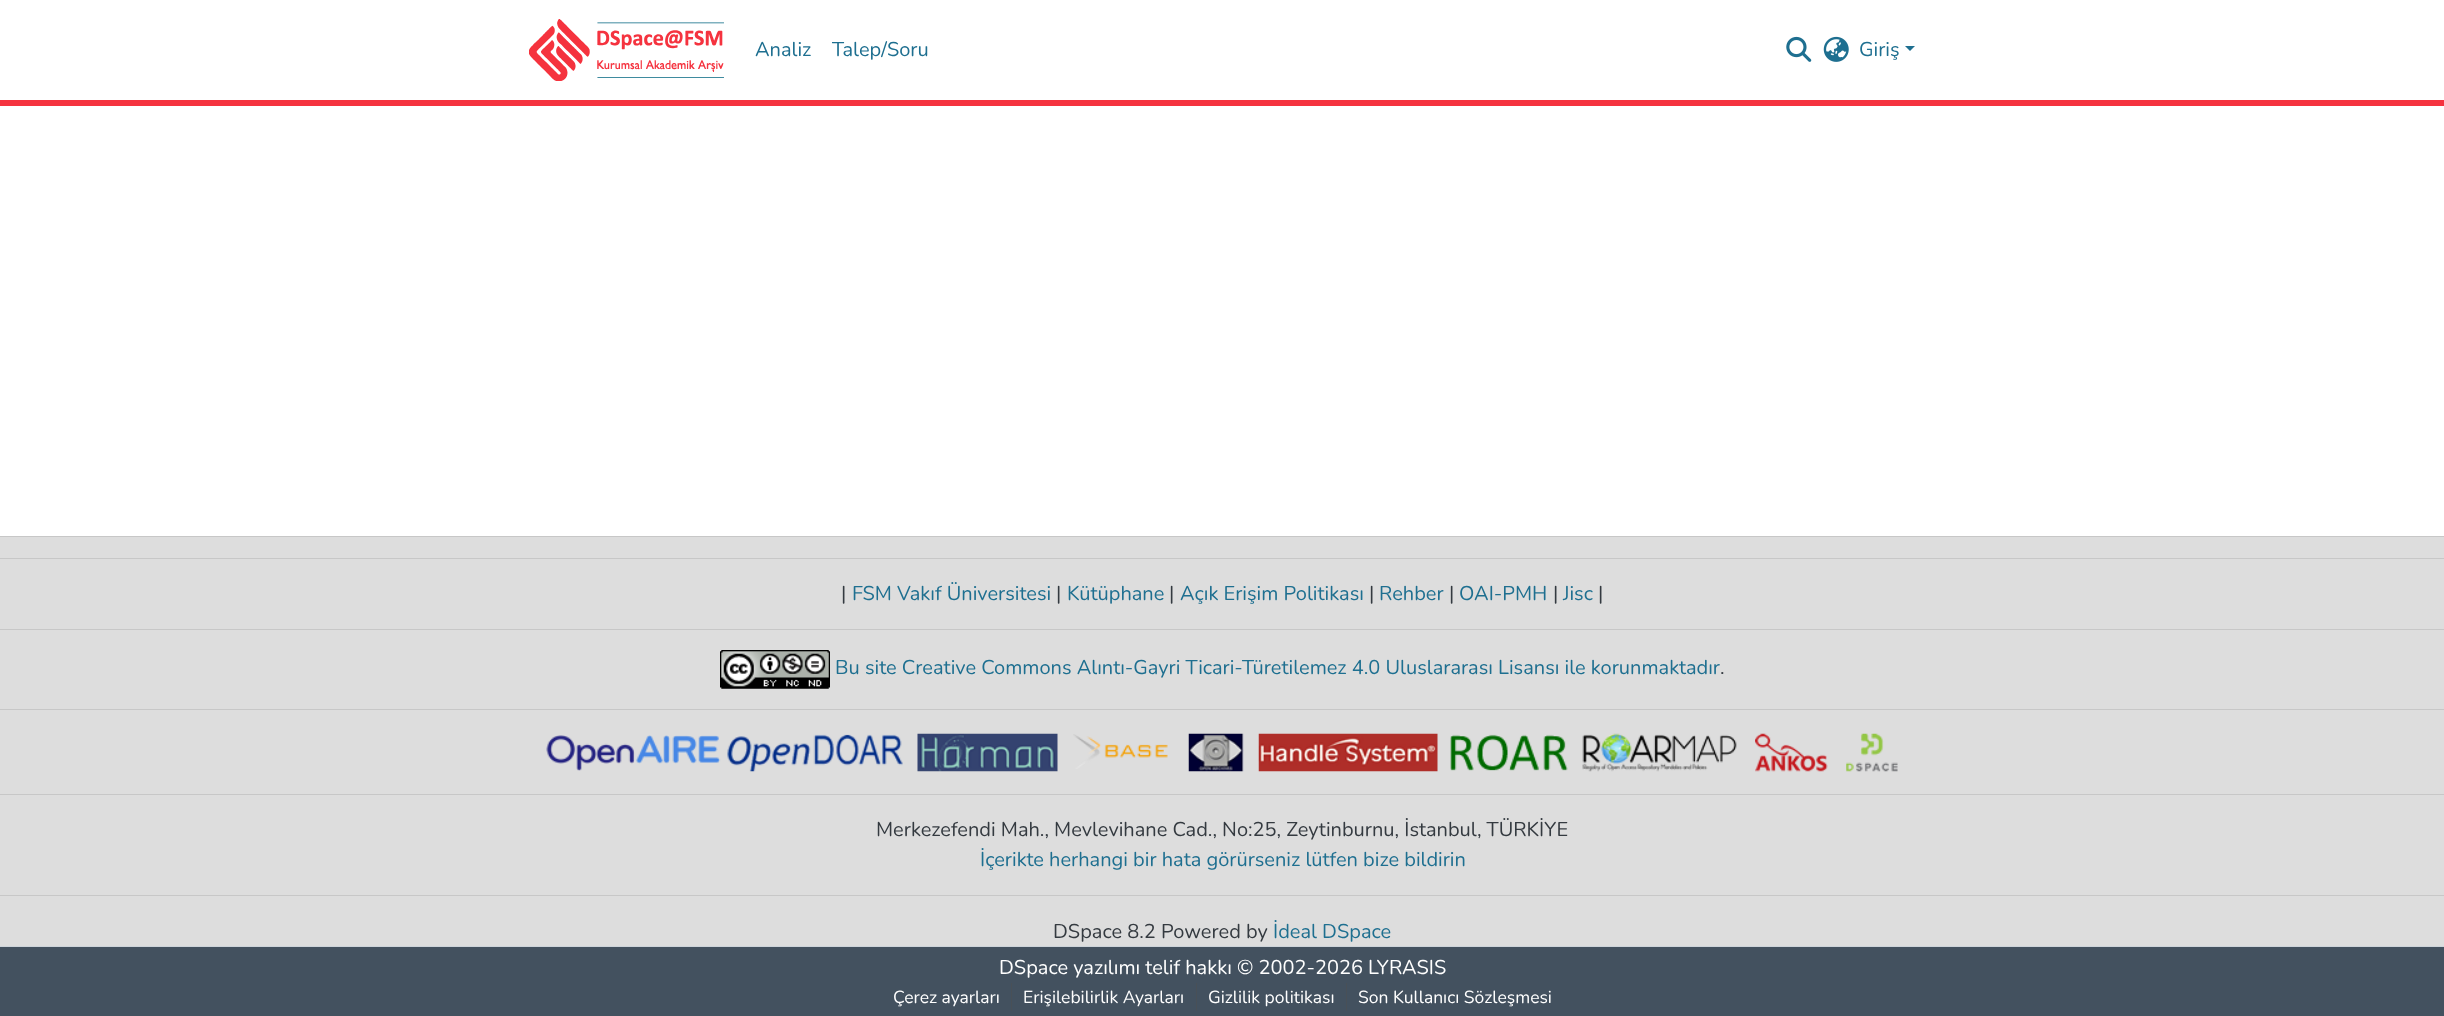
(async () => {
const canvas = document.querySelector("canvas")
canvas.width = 2444
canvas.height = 1016
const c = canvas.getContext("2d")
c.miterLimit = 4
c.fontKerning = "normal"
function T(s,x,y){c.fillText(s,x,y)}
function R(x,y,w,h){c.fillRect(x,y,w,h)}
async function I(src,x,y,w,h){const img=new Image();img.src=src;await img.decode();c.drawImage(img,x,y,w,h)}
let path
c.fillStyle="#fff"
R(0,0,2444,1016)
c.fillStyle="#f5333f"
R(0,100,2444,6)
await I("1.png",529,19,195,62)
c.font="20px Nunito"
c.fillStyle="#1e6f90"
T("Analiz",755,56)
T("Talep/Soru",832,56)
await I("2.png",1786,36,26,26)
await I("3.png",1823,36,26,26)
T("Giriş",1859,56)
path = new Path2D("M1905 46h10l-5 5z")
c.fill(path)
c.fillStyle="#ddd"
R(0,537,2444,409)
c.fillStyle="#c7c7c7"
R(0,536,2444,1)
R(0,558,2444,1)
c.fillStyle="#343a40"
T("|",841,600)
c.fillStyle="#1e6f90"
T("FSM Vakıf Üniversitesi",852,600)
c.fillStyle="#343a40"
T("|",1056,600)
c.fillStyle="#1e6f90"
T("Kütüphane",1067,600)
c.fillStyle="#343a40"
T("|",1169,600)
c.fillStyle="#1e6f90"
T("Açık Erişim Politikası",1180,600)
c.fillStyle="#343a40"
T("|",1369,600)
c.fillStyle="#1e6f90"
T("Rehber",1379,600)
c.fillStyle="#343a40"
T("|",1449,600)
c.fillStyle="#1e6f90"
T("OAI-PMH",1459,600)
c.fillStyle="#343a40"
T("|",1553,600)
c.fillStyle="#1e6f90"
T("Jisc",1563,600)
c.fillStyle="#343a40"
T("|",1598,600)
c.fillStyle="#c7c7c7"
R(0,629,2444,1)
await I("4.png",720,650,110,39)
c.fillStyle="#1e6f90"
T("Bu site Creative Commons Alıntı-Gayri Ticari-Türetilemez 4.0 Uluslararası Lisansı ile korunmaktadır",835,674)
c.fillStyle="#343a40"
T(".",1720,674)
c.fillStyle="#c7c7c7"
R(0,709,2444,1)
await I("5.png",546,735,175,36)
await I("6.png",727,734,176,38)
await I("7.png",917,733,141,39)
await I("8.png",1073,734,95,35)
await I("9.png",1188,733,56,39)
await I("10.png",1258,733,180,39)
await I("11.png",1450,734,118,37)
await I("12.png",1582,733,155,39)
await I("13.png",1755,733,73,39)
await I("14.png",1846,733,52,39)
R(0,794,2444,1)
c.fillStyle="#343a40"
T("Merkezefendi Mah., Mevlevihane Cad., No:25, Zeytinburnu, İstanbul, TÜRKİYE",876,836)
c.fillStyle="#1e6f90"
T("İçerikte herhangi bir hata görürseniz lütfen bize bildirin",980,866)
c.fillStyle="#c7c7c7"
R(0,895,2444,1)
c.fillStyle="#343a40"
T("DSpace 8.2 Powered by",1053,938)
c.fillStyle="#1e6f90"
T("İdeal DSpace",1273,938)
c.fillStyle="#43515f"
R(0,947,2444,69)
c.fillStyle="#ced4da"
R(0,946,2444,1)
c.fillStyle="#fff"
T("DSpace yazılımı telif hakkı © 2002-2026 LYRASIS",999,974)
c.font="17.5px Nunito"
T("Çerez ayarları",893,1003)
c.fillStyle="#495057"
R(1011,983,1,28)
c.fillStyle="#fff"
T("Erişilebilirlik Ayarları",1023,1003)
c.fillStyle="#495057"
R(1196,983,1,28)
c.fillStyle="#fff"
T("Gizlilik politikası",1208,1003)
c.fillStyle="#495057"
R(1346,983,1,28)
c.fillStyle="#fff"
T("Son Kullanıcı Sözleşmesi",1358,1003)
})()
